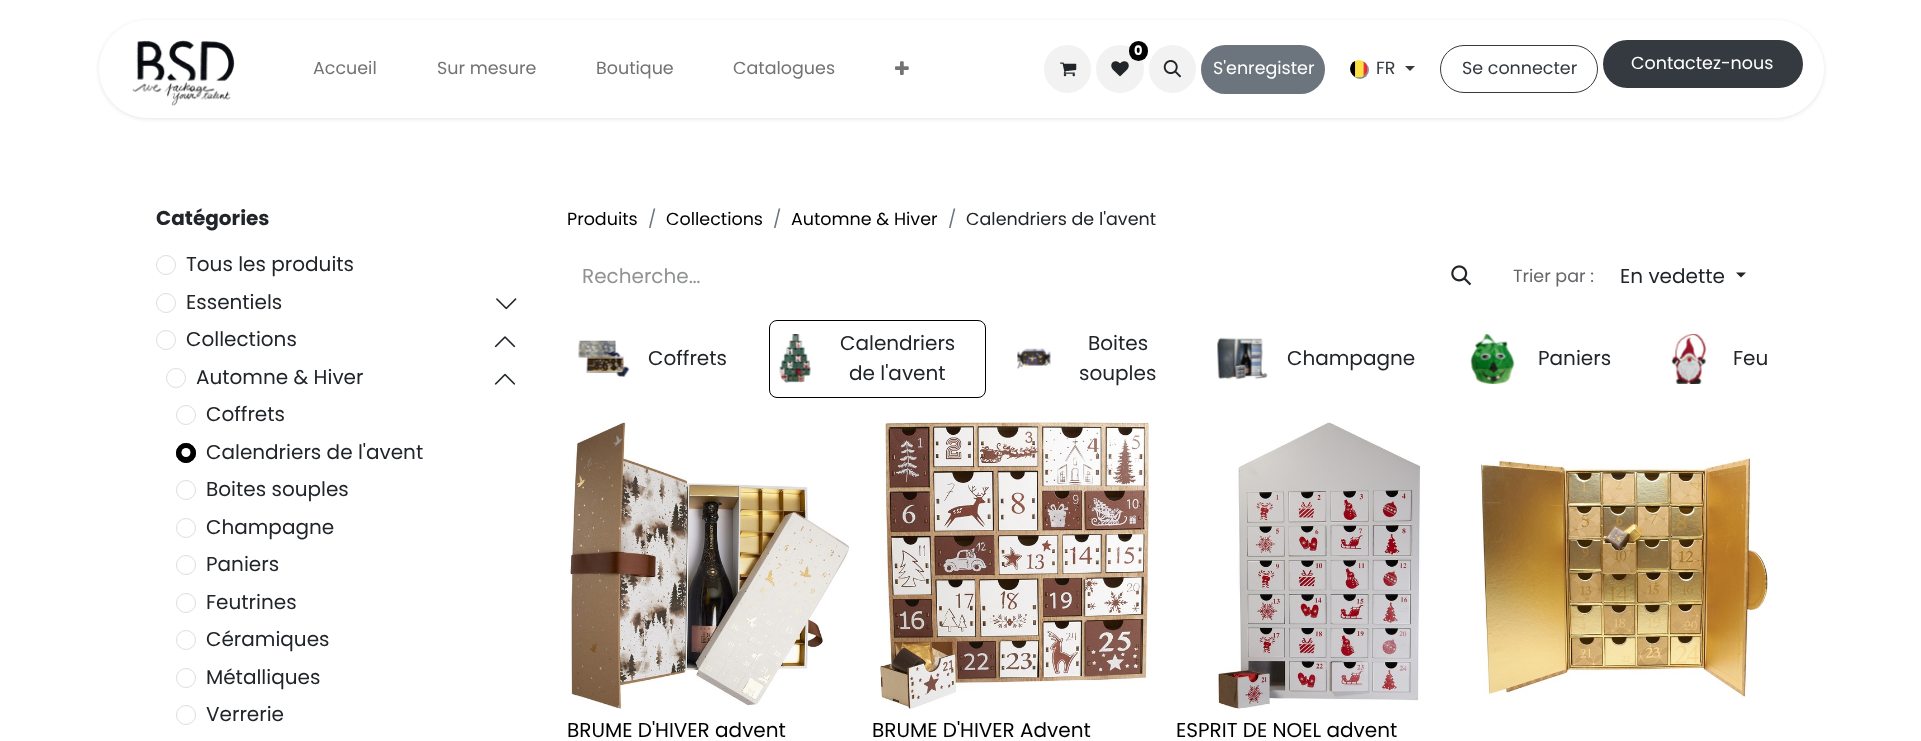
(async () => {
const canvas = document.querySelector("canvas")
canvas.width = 1921
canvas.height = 741
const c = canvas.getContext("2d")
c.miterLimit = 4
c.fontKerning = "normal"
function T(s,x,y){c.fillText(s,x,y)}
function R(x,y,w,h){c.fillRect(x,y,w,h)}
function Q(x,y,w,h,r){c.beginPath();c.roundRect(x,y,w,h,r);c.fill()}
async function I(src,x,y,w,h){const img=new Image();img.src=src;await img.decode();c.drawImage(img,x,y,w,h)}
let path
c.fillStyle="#fff"
R(0,0,1921,741)
c.fillStyle="#0000001a"
c.filter="blur(2px)"
c.beginPath()
c.roundRect(99,21,1725,98,49)
c.fill()
c.filter="none"
c.fillStyle="#fff"
Q(99,20,1725,98,49)
await I("1.png",132,40,103,66)
c.font="17.5px Poppins"
c.fillStyle="#737373"
T("Accueil",313,74)
T("Sur mesure",437,74)
T("Boutique",596,74)
T("Catalogues",733,74)
await I("2.png",895,61,14,14)
c.fillStyle="#f2f2f2"
Q(1044,45,47,48,23.5)
await I("3.png",1060,62,17,15)
c.beginPath()
c.arc(1120,69,24,0,7)
c.fill()
c.fillStyle="#000"
Q(1129,41,19,20,9.5)
c.font="bold 13px Poppins"
c.fillStyle="#fff"
T("0",1134,55)
await I("4.png",1111,61,18,16)
c.fillStyle="#f2f2f2"
Q(1149,45,47,48,23.5)
await I("5.png",1163,60,19,18)
c.fillStyle="#6c757d"
Q(1201,45,124,49,24.5)
c.font="17.5px Poppins"
c.fillStyle="#fff"
T("S'enregister",1213,74)
c.fillStyle="#0000006e"
c.filter="blur(0.5px)"
c.beginPath()
c.roundRect(1351,61,18,18,9)
c.fill()
c.filter="none"
await I("6.png",1350,60,18,18)
c.fillStyle="#343a40"
T("FR",1376,74)
path = new Path2D("M1405 66h10l-5 5z")
c.fill(path)
c.beginPath()
c.roundRect(1440.5,45.5,157,47,23.5)
c.strokeStyle="#343a40"
c.stroke()
T("Se connecter",1462,74)
Q(1603,40,200,48,24)
c.fillStyle="#fff"
T("Contactez-nous",1631,69)
c.font="bold 20px Poppins"
c.fillStyle="#212529"
T("Catégories",156,225)
c.beginPath()
c.arc(166,265,9.5,0,7)
c.strokeStyle="#dededf"
c.stroke()
c.font="20px Poppins"
T("Tous les produits",186,271)
c.beginPath()
c.arc(166,303,9.5,0,7)
c.stroke()
T("Essentiels",186,309)
await I("7.png",496,298,21,12)
c.beginPath()
c.arc(166,340,9.5,0,7)
c.stroke()
T("Collections",186,346)
await I("8.png",494,336,22,12)
c.beginPath()
c.arc(176,378,9.5,0,7)
c.stroke()
T("Automne & Hiver",196,384)
await I("9.png",494,373,22,12)
c.beginPath()
c.arc(186,415,9.5,0,7)
c.stroke()
T("Coffrets",206,421)
c.fillStyle="#000"
c.beginPath()
c.arc(186,453,10,0,7)
c.fill()
c.fillStyle="#fff"
c.beginPath()
c.arc(186,452.5,4.5,0,7)
c.fill()
c.beginPath()
c.arc(186,453,9.5,0,7)
c.strokeStyle="#000"
c.stroke()
c.fillStyle="#212529"
T("Calendriers de l'avent",206,459)
c.beginPath()
c.arc(186,490,9.5,0,7)
c.strokeStyle="#dededf"
c.stroke()
T("Boites souples",206,496)
c.beginPath()
c.arc(186,528,9.5,0,7)
c.stroke()
T("Champagne",206,534)
c.beginPath()
c.arc(186,565,9.5,0,7)
c.stroke()
T("Paniers",206,571)
c.beginPath()
c.arc(186,603,9.5,0,7)
c.stroke()
T("Feutrines",206,609)
c.beginPath()
c.arc(186,640,9.5,0,7)
c.stroke()
T("Céramiques",206,646)
c.beginPath()
c.arc(186,678,9.5,0,7)
c.stroke()
T("Métalliques",206,684)
c.beginPath()
c.arc(186,715,9.5,0,7)
c.stroke()
T("Verrerie",206,721)
c.font="17.5px Poppins"
c.fillStyle="#000"
T("Produits",567,225)
c.fillStyle="#6c757d"
T("/",648,225)
c.fillStyle="#000"
T("Collections",666,225)
c.fillStyle="#6c757d"
T("/",773,225)
c.fillStyle="#000"
T("Automne & Hiver",791,225)
c.fillStyle="#6c757d"
T("/",948,225)
c.fillStyle="#212529"
T("Calendriers de l'avent",966,225)
c.font="20px Poppins"
c.fillStyle="#909294"
T("Recherche…",582,283)
await I("10.png",1451,265,21,21)
c.font="17.5px Poppins"
c.fillStyle="#646669"
T("Trier par :",1513,282)
c.font="20px Poppins"
c.fillStyle="#212529"
T("En vedette",1620,283)
path = new Path2D("M1736 272.5h10l-5 5z")
c.fill(path)
await I("11.png",578,340,52,37)
T("Coffrets",648,365)
c.beginPath()
c.roundRect(769.5,320.5,216,77,7.5)
c.strokeStyle="#000"
c.stroke()
await I("12.png",779,334,32,49)
T("Calendriers",840,350)
T("de l'avent",849,380)
await I("13.png",1017,348,34,22)
T("Boites",1088,350)
T("souples",1079,380)
await I("14.png",1217,337,51,43)
T("Champagne",1287,365)
await I("15.png",1470,334,45,50)
T("Paniers",1538,365)
await I("16.png",1671,334,36,50)
T("Feu",1733,365)
await I("17.png",1481,457,287,241)
await I("18.png",569,422,281,287)
c.fillStyle="#000"
T("BRUME D'HIVER advent",567,737)
await I("19.png",880,422,269,287)
T("BRUME D'HIVER Advent",872,737)
await I("20.png",1217,422,204,287)
T("ESPRIT DE NOEL advent",1176,737)
})()
